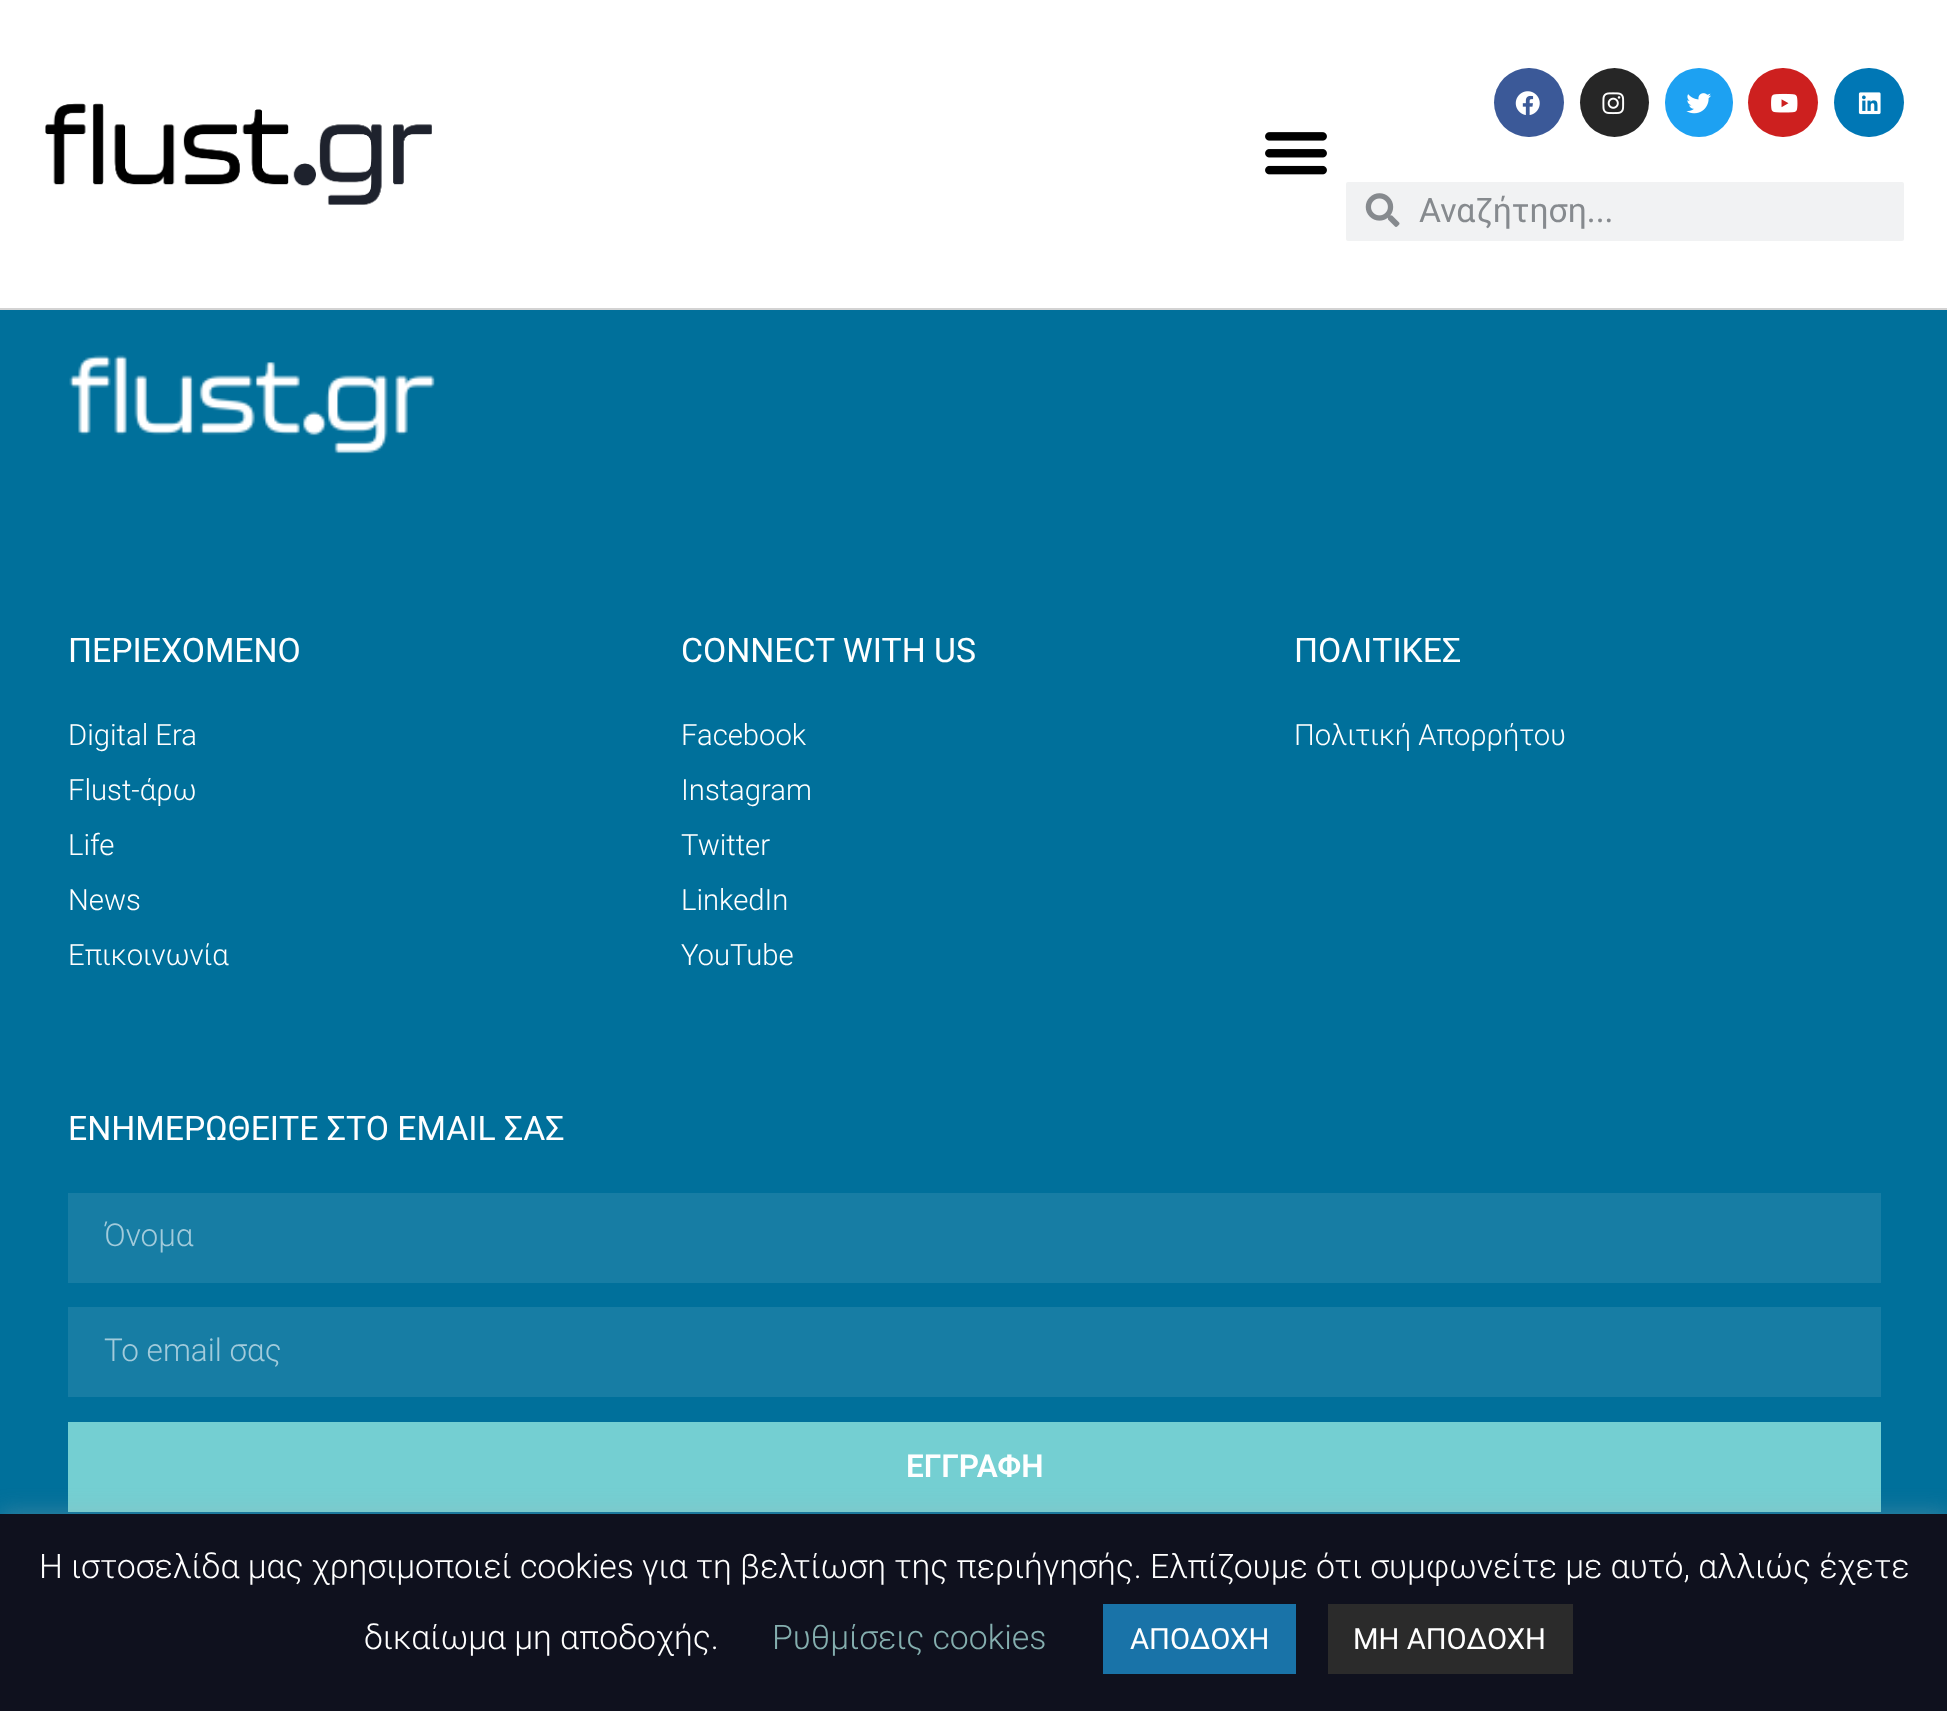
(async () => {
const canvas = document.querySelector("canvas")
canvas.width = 1947
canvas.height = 1711
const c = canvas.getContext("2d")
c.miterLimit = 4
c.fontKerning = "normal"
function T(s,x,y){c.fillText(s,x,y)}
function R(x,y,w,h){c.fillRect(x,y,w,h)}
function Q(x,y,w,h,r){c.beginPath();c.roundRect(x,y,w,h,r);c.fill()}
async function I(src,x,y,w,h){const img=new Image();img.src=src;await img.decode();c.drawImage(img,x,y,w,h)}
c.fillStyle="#00709b"
R(0,0,1947,1711)
c.fillStyle="#fff"
R(0,0,1947,308)
c.fillStyle="#d3d3d3"
R(0,308,1947,2)
await I("1.png",45,103,387,102)
await I("2.png",1265,132,62,43)
c.fillStyle="#3b5998"
Q(1494,68,70,69,34.5)
await I("3.png",1515,91,25,24)
c.fillStyle="#262626"
c.beginPath()
c.arc(1614.5,102.5,34.5,0,7)
c.fill()
await I("4.png",1602,92,23,23)
c.fillStyle="#1da1f2"
Q(1665,68,68,69,34)
await I("5.png",1686,93,25,21)
c.fillStyle="#cd201f"
Q(1748,68,70,69,34.5)
await I("6.png",1771,93,27,20)
c.fillStyle="#0077b5"
Q(1834,68,70,69,34.5)
await I("7.png",1858,92,23,23)
c.fillStyle="#f1f2f3"
Q(1346,182,558,59,2)
await I("8.png",1365,193,35,34)
c.font="33.75px Roboto"
c.fillStyle="#868a8e"
T("Αναζήτηση...",1419,222)
await I("9.png",69,355,366,99)
c.fillStyle="#fff"
T("ΠΕΡΙΕΧΟΜΕΝΟ",68,662)
c.font="300 29.25px Roboto"
T("Digital Era",68,745)
T("Flust-άρω",68,800)
T("Life",68,855)
T("News",68,910)
T("Επικοινωνία",68,965)
c.font="33.75px Roboto"
T("CONNECT WITH US",681,662)
c.font="300 29.25px Roboto"
T("Facebook",681,745)
T("Instagram",681,800)
T("Twitter",681,855)
T("LinkedIn",681,910)
T("YouTube",681,965)
c.font="33.75px Roboto"
T("ΠΟΛΙΤΙΚΕΣ",1294,662)
c.font="300 29.25px Roboto"
T("Πολιτική Απορρήτου",1294,745)
c.font="33.75px Roboto"
T("ΕΝΗΜΕΡΩΘΕΙΤΕ ΣΤΟ EMAIL ΣΑΣ",68,1140)
c.fillStyle="#177da4"
R(68,1193,1813,90)
c.font="300 31.5px Roboto"
c.fillStyle="#a2cbdb"
T("Όνομα",104,1246)
c.fillStyle="#177da4"
R(68,1307,1813,90)
c.fillStyle="#a2cbdb"
T("Το email σας",104,1361)
c.fillStyle="#74cfd2"
R(68,1422,1813,90)
c.font="600 31.5px Roboto"
c.fillStyle="#fff"
T("ΕΓΓΡΑΦΗ",906,1477)
c.fillStyle="#acabab4d"
c.filter="blur(11px)"
c.beginPath()
c.rect(0,1512,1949,198)
c.fill()
c.filter="none"
c.fillStyle="#0f111e"
R(0,1514,1947,197)
c.font="300 33.75px Roboto"
c.fillStyle="#fff"
T("Η ιστοσελίδα μας χρησιμοποιεί cookies για τη βελτίωση της περιήγησής. Ελπίζουμε ότι συμφωνείτε με αυτό, αλλιώς έχετε",39,1578)
T("δικαίωμα μη αποδοχής.",364,1649)
c.fillStyle="#85afaf"
T("Ρυθμίσεις cookies",772,1649)
c.fillStyle="#1973a8"
R(1103,1604,193,70)
c.font="29.25px Roboto"
c.fillStyle="#fff"
T("ΑΠΟΔΟΧΗ",1130,1649)
c.fillStyle="#2b2b2b"
R(1328,1604,245,70)
c.fillStyle="#fff"
T("ΜΗ ΑΠΟΔΟΧΗ",1353,1649)
})()
